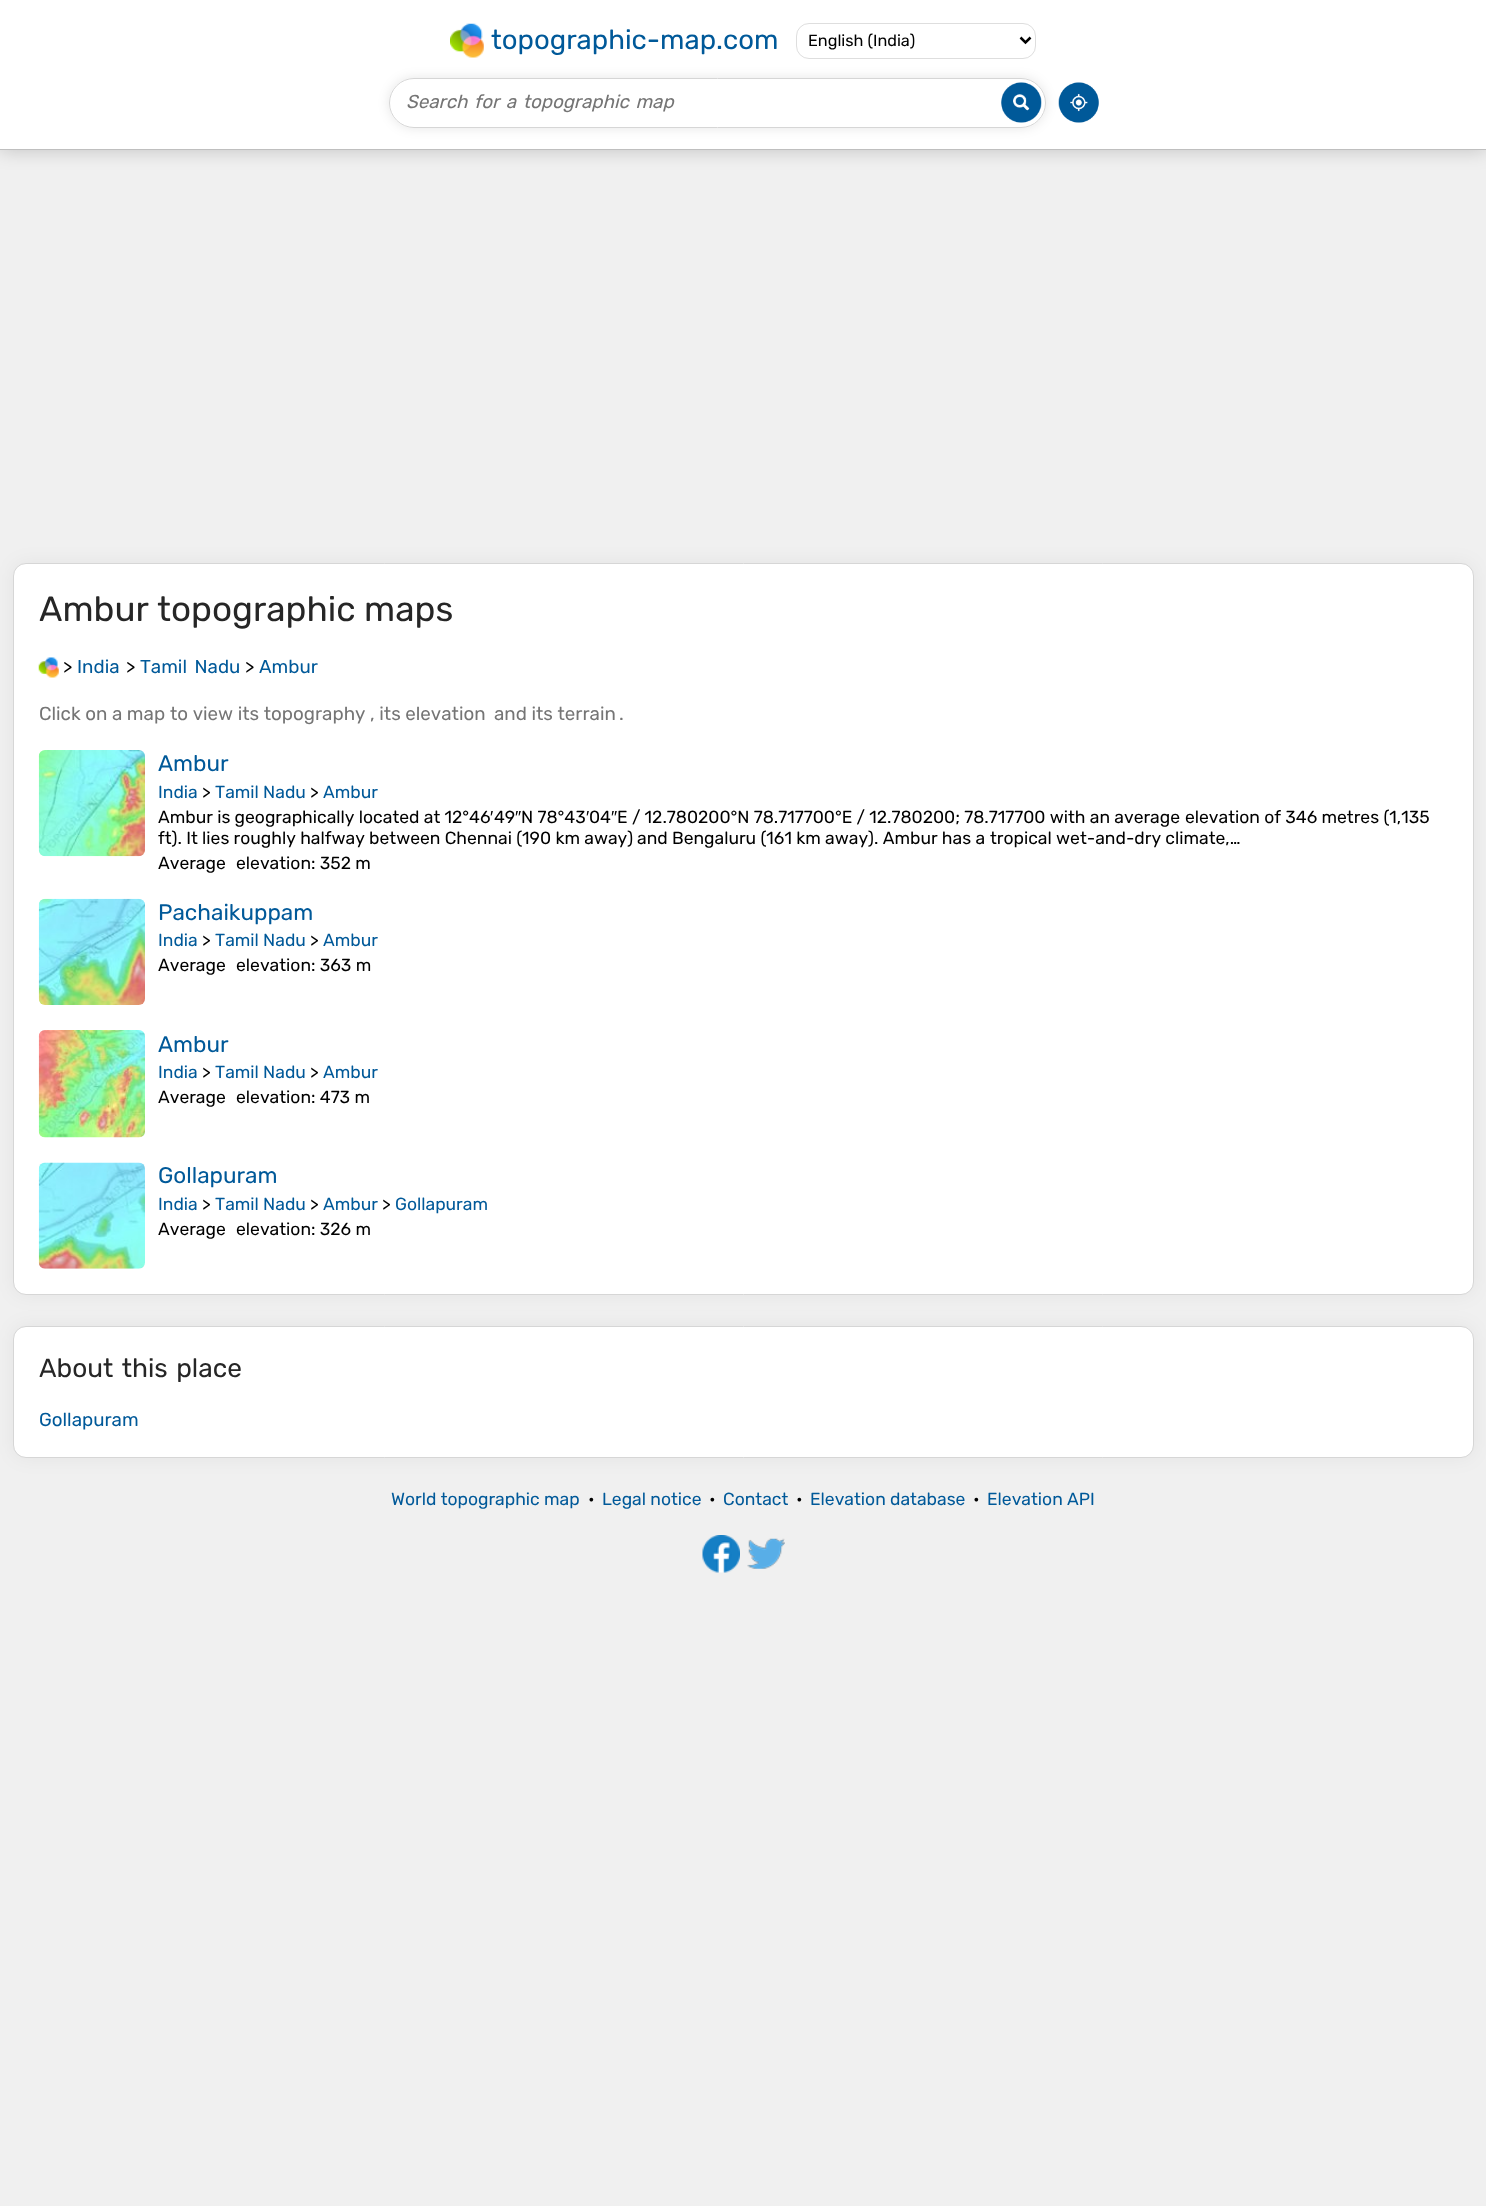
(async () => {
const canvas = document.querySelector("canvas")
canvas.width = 1486
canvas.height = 2206
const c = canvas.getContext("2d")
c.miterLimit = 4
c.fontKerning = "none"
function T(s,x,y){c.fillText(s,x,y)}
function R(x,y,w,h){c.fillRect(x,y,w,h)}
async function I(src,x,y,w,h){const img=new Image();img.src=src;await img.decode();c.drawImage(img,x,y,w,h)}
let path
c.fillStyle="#f0f0f0"
R(0,0,1486,2206)
c.fillStyle="#00000033"
c.filter="blur(9.5px)"
c.beginPath()
c.rect(0,0,1486,150)
c.fill()
c.filter="none"
c.fillStyle="#fff"
R(0,0,1486,149)
c.fillStyle="#bfbfbf"
R(0,149,1486,1)
await I("1.png",450,23,34,35)
c.font="27.5px Rubik"
c.fillStyle="#005999"
T("topographic-map.com",491,49)
c.beginPath()
c.roundRect(796.5,23.5,239,35,12.5)
c.strokeStyle="#dedede"
c.stroke()
path = new Path2D("M1020.5 37.5l5 5l5-5")
c.strokeStyle="#000"
c.lineWidth=2.5
c.stroke(path)
c.font="16.25px Rubik"
c.fillStyle="#000"
T("English (India)",808,46)
c.save()
path = new Path2D("M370 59h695v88h-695zm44 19h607c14 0 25 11 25 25c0 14-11 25-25 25h-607c-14 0-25-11-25-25c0-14 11-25 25-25z")
c.clip(path,"evenodd")
c.fillStyle="#0000001a"
c.filter="blur(6px)"
c.beginPath()
c.roundRect(389,78,657,50,25)
c.fill()
c.filter="none"
c.restore()
c.beginPath()
c.roundRect(389.5,78.5,656,49,24.5)
c.strokeStyle="#d6d6d6"
c.lineWidth=1
c.stroke()
c.wordSpacing="2px"
c.font="italic 18.75px Rubik"
c.fillStyle="#757575"
T("Search for a topographic map",406,108)
await I("2.png",1001,82,41,41)
await I("3.png",1058,82,41,41)
c.fillStyle="#0000000d"
c.filter="blur(9.5px)"
c.beginPath()
c.roundRect(13,563,1461,732,13)
c.fill()
c.filter="none"
c.fillStyle="#fff"
c.beginPath()
c.roundRect(13.5,563.5,1460,731,12.5)
c.fill()
c.stroke()
c.wordSpacing="0px"
c.font="35px Rubik"
c.fillStyle="#262626"
T("Ambur topographic maps",39,621)
await I("4.png",38,657,21,21)
c.font="18.75px Rubik"
c.fillStyle="#000"
T(">",63,673)
c.fillStyle="#005999"
T("India",77,673)
c.fillStyle="#000"
T(">",126,673)
c.wordSpacing="3px"
c.fillStyle="#005999"
T("Tamil Nadu",140,673)
c.wordSpacing="0px"
c.fillStyle="#000"
T(">",245,673)
c.fillStyle="#005999"
T("Ambur",259,673)
c.fillStyle="#757575"
T("Click on a map",39,720)
T("to view its topography",170,720)
T(", its elevation",370,720)
T("and its terrain",494,720)
T(".",619,720)
await I("5.png",38,750,107,107)
c.font="22.5px Rubik"
c.fillStyle="#005999"
T("Ambur",158,771)
c.font="17.5px Rubik"
T("India",158,798)
c.fillStyle="#000"
T(">",202,798)
c.fillStyle="#005999"
T("Tamil Nadu",215,798)
c.fillStyle="#000"
T(">",310,798)
c.fillStyle="#005999"
T("Ambur",323,798)
c.fillStyle="#000"
T("Ambur is geographically located at 12°46",158,823)
c.font="17.5px Liberation Sans"
T("′",490,823)
c.font="17.5px Rubik"
T("49",494,823)
c.font="17.5px Liberation Sans"
T("″",515,823)
c.font="17.5px Rubik"
T("N 78°43",521,823)
c.font="17.5px Liberation Sans"
T("′",586,823)
c.font="17.5px Rubik"
T("04",589,823)
c.font="17.5px Liberation Sans"
T("″",611,823)
c.font="17.5px Rubik"
T("E / 12.780200°N 78.717700°E / 12.780200; 78.717700 with an average",617,823)
T("elevation of 346 metres (1,135",1185,823)
T("ft). It lies roughly halfway between Chennai (190 km away)",158,844)
T("and Bengaluru (161 km away). Ambur has a",637,844)
T("tropical wet-and-dry climate,…",990,844)
c.wordSpacing="6px"
T("Average elevation",158,869)
c.wordSpacing="0px"
T(": 352 m",311,869)
await I("6.png",38,898,107,107)
c.font="22.5px Rubik"
c.fillStyle="#005999"
T("Pachaikuppam",158,920)
c.font="17.5px Rubik"
T("India",158,946)
c.fillStyle="#000"
T(">",202,946)
c.fillStyle="#005999"
T("Tamil Nadu",215,946)
c.fillStyle="#000"
T(">",310,946)
c.fillStyle="#005999"
T("Ambur",323,946)
c.wordSpacing="6px"
c.fillStyle="#000"
T("Average elevation",158,971)
c.wordSpacing="0px"
T(": 363 m",311,971)
await I("7.png",38,1030,107,108)
c.font="22.5px Rubik"
c.fillStyle="#005999"
T("Ambur",158,1052)
c.font="17.5px Rubik"
T("India",158,1078)
c.fillStyle="#000"
T(">",202,1078)
c.fillStyle="#005999"
T("Tamil Nadu",215,1078)
c.fillStyle="#000"
T(">",310,1078)
c.fillStyle="#005999"
T("Ambur",323,1078)
c.wordSpacing="6px"
c.fillStyle="#000"
T("Average elevation",158,1103)
c.wordSpacing="0px"
T(": 473 m",311,1103)
await I("8.png",38,1162,107,107)
c.font="22.5px Rubik"
c.fillStyle="#005999"
T("Gollapuram",158,1183)
c.font="17.5px Rubik"
T("India",158,1210)
c.fillStyle="#000"
T(">",202,1210)
c.fillStyle="#005999"
T("Tamil Nadu",215,1210)
c.fillStyle="#000"
T(">",310,1210)
c.fillStyle="#005999"
T("Ambur",323,1210)
c.fillStyle="#000"
T(">",382,1210)
c.fillStyle="#005999"
T("Gollapuram",395,1210)
c.wordSpacing="6px"
c.fillStyle="#000"
T("Average elevation",158,1235)
c.wordSpacing="0px"
T(": 326 m",311,1235)
c.fillStyle="#0000000d"
c.filter="blur(9.5px)"
c.beginPath()
c.roundRect(13,1326,1461,132,13)
c.fill()
c.filter="none"
c.fillStyle="#fff"
c.beginPath()
c.roundRect(13.5,1326.5,1460,131,12.5)
c.fill()
c.stroke()
c.wordSpacing="2px"
c.font="26.25px Rubik"
c.fillStyle="#262626"
T("About this place",39,1377)
c.wordSpacing="0px"
c.font="18.75px Rubik"
c.fillStyle="#005999"
T("Gollapuram",39,1426)
c.font="17.5px Rubik"
T("World topographic map",391,1505)
c.fillStyle="#000"
T("•",588,1505)
c.fillStyle="#005999"
T("Legal notice",602,1505)
c.fillStyle="#000"
T("•",709,1505)
c.fillStyle="#005999"
T("Contact",723,1505)
c.fillStyle="#000"
T("•",796,1505)
c.fillStyle="#005999"
T("Elevation database",810,1505)
c.fillStyle="#000"
T("•",973,1505)
c.fillStyle="#005999"
T("Elevation API",987,1505)
await I("9.png",702,1535,38,38)
await I("10.png",747,1538,38,31)
})()
